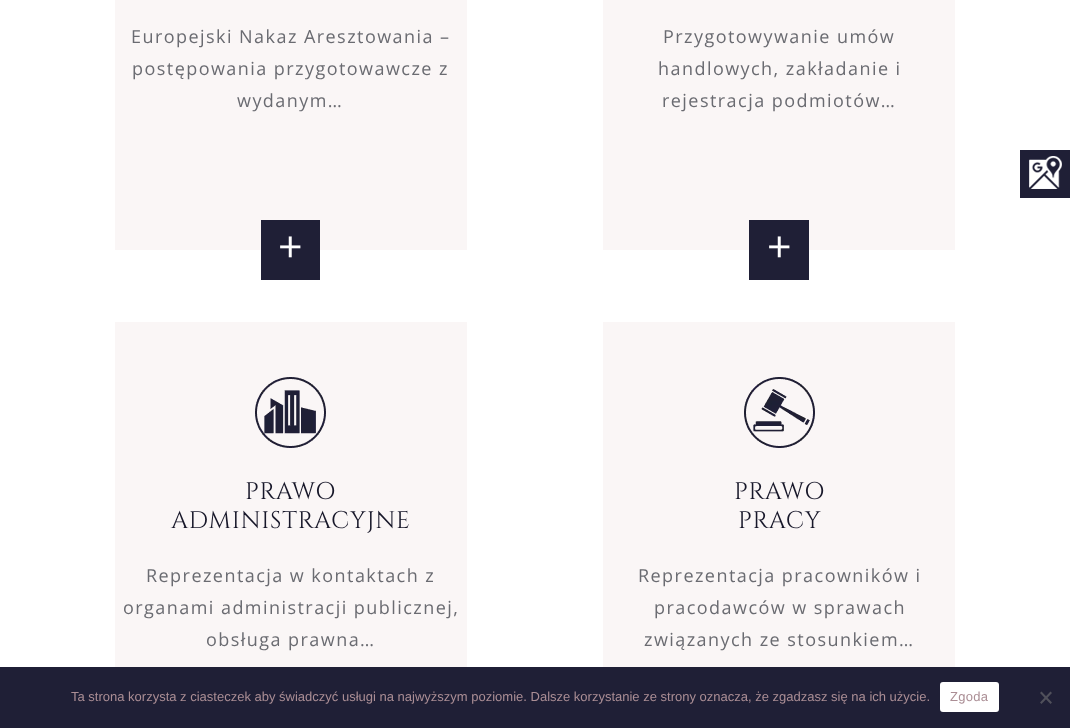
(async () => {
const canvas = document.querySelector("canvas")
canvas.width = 1070
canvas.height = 728
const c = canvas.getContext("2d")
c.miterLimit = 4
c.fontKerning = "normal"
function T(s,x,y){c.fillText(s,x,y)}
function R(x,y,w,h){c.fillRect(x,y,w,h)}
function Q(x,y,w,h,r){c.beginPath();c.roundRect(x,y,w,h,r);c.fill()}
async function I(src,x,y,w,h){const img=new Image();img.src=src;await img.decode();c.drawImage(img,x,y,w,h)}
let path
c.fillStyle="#fff"
R(0,0,1070,728)
c.fillStyle="#faf6f6"
R(115,0,352,250)
c.letterSpacing="1.45px"
c.font="18px Open Sans"
c.fillStyle="#6a6b71"
T("Europejski Nakaz Aresztowania –",131,43)
T("postępowania przygotowawcze z",132,75)
T("wydanym…",237,107)
c.fillStyle="#1f1f36"
R(261,220,59,60)
c.letterSpacing="0px"
c.font="43px Open Sans"
c.fillStyle="#fff"
T("+",278,262)
c.fillStyle="#faf6f6"
R(603,0,352,250)
c.letterSpacing="1.45px"
c.font="18px Open Sans"
c.fillStyle="#6a6b71"
T("Przygotowywanie umów",663,43)
T("handlowych, zakładanie i",658,75)
T("rejestracja podmiotów…",662,107)
c.fillStyle="#1f1f36"
R(749,220,60,60)
c.letterSpacing="0px"
c.font="43px Open Sans"
c.fillStyle="#fff"
T("+",767,262)
c.fillStyle="#faf6f6"
R(115,322,352,345)
await I("1.png",255,377,71,71)
c.letterSpacing="0.75px"
c.font="24px Cinzel"
c.fillStyle="#171729"
T("PRAWO",245,499)
T("ADMINISTRACYJNE",171,528)
c.letterSpacing="1.45px"
c.font="18px Open Sans"
c.fillStyle="#6a6b71"
T("Reprezentacja w kontaktach z",146,582)
T("organami administracji publicznej,",123,614)
T("obsługa prawna…",206,646)
c.fillStyle="#faf6f6"
R(603,322,352,345)
await I("2.png",744,377,71,71)
c.letterSpacing="0.75px"
c.font="24px Cinzel"
c.fillStyle="#171729"
T("PRAWO",734,499)
T("PRACY",738,528)
c.letterSpacing="1.45px"
c.font="18px Open Sans"
c.fillStyle="#6a6b71"
T("Reprezentacja pracowników i",638,582)
T("pracodawców w sprawach",654,614)
T("związanych ze stosunkiem…",644,646)
c.fillStyle="#1f1f36"
R(1020,150,50,48)
await I("3.png",1029,156,33,33)
R(0,667,1070,61)
c.letterSpacing="0px"
c.font="13px Liberation Sans"
c.fillStyle="#ab8e95"
T("Ta strona korzysta z ciasteczek aby świadczyć usługi na najwyższym poziomie. Dalsze korzystanie ze strony oznacza, że zgadzasz się na ich użycie.",71,701)
c.fillStyle="#fff"
Q(940,682,59,30,3)
c.letterSpacing="0.25px"
c.fillStyle="#ab8e95"
T("Zgoda",950,701)
c.fillStyle="#50505b"
path = new Path2D("M1050.5 691.5l1.5 1.5l-10.5 11l-1.5-1.5z")
c.fill(path)
path = new Path2D("M1040 693l1.5-1.5l10.5 11l-1.5 1.5z")
c.fill(path)
})()
